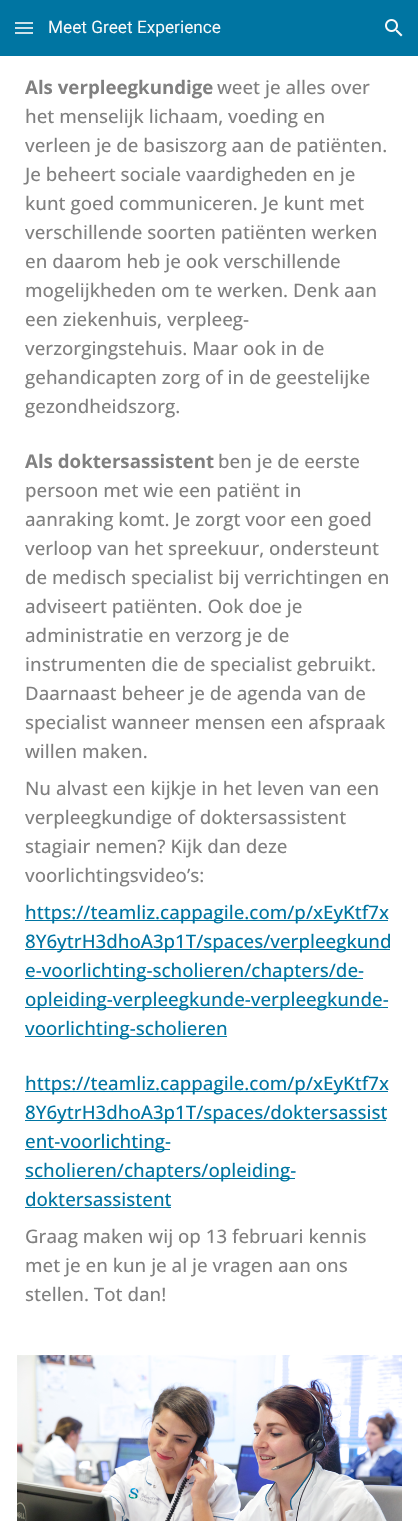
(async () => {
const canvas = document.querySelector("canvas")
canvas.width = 418
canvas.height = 1521
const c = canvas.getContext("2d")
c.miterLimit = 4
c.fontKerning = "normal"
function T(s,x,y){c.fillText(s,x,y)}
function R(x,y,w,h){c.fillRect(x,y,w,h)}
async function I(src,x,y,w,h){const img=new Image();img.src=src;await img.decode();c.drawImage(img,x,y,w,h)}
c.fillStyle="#fff"
R(0,0,418,1521)
c.fillStyle="#0075a2"
R(0,0,418,56)
c.fillStyle="#cce1e9"
R(15,22,18,2)
R(15,27,18,2)
R(15,32,18,2)
c.font="17.25px Roboto"
c.fillStyle="#f9f9f9"
T("Meet Greet Experience",48,33)
await I("1.png",385,19,18,18)
c.font="bold 18.7px Open Sans"
c.fillStyle="#808080"
T("Als verpleegkundige",25,94)
c.font="500 18.7px Open Sans"
T("weet je alles over",217,94)
T("het menselijk lichaam, voeding en",25,123)
T("verleen je de basiszorg aan de patiënten.",25,152)
T("Je beheert sociale vaardigheden en je",25,181)
T("kunt goed communiceren. Je kunt met",25,210)
T("verschillende soorten patiënten werken",25,239)
T("en daarom heb je ook verschillende",25,268)
T("mogelijkheden om te werken. Denk aan",25,297)
T("een ziekenhuis, verpleeg-",25,326)
T("verzorgingstehuis. Maar ook in de",25,355)
T("gehandicapten zorg of in de geestelijke",25,384)
T("gezondheidszorg.",25,413)
c.font="bold 18.7px Open Sans"
T("Als doktersassistent",25,468)
c.font="500 18.7px Open Sans"
T("ben je de eerste",218,468)
T("persoon met wie een patiënt in",25,497)
T("aanraking komt. Je zorgt voor een goed",25,526)
T("verloop van het spreekuur, ondersteunt",25,555)
T("de medisch specialist bij verrichtingen en",25,584)
T("adviseert patiënten. Ook doe je",25,613)
T("administratie en verzorg je de",25,642)
T("instrumenten die de specialist gebruikt.",25,671)
T("Daarnaast beheer je de agenda van de",25,700)
T("specialist wanneer mensen een afspraak",25,729)
T("willen maken.",25,758)
T("Nu alvast een kijkje in het leven van een",25,795)
T("verpleegkundige of doktersassistent",25,824)
T("stagiair nemen? Kijk dan deze",25,853)
T("voorlichtingsvideo’s:",25,882)
c.fillStyle="#0075a2"
R(25,920,363,1)
T("https://teamliz.cappagile.com/p/xEyKtf7x",25,919)
R(25,949,365,1)
T("8Y6ytrH3dhoA3p1T/spaces/verpleegkund",25,948)
R(25,978,338,1)
T("e-voorlichting-scholieren/chapters/de-",25,977)
R(25,1007,363,1)
T("opleiding-verpleegkunde-verpleegkunde-",25,1006)
R(25,1036,202,1)
T("voorlichting-scholieren",25,1035)
R(25,1091,363,1)
T("https://teamliz.cappagile.com/p/xEyKtf7x",25,1090)
R(25,1120,361,1)
T("8Y6ytrH3dhoA3p1T/spaces/doktersassist",25,1119)
R(25,1149,145,1)
T("ent-voorlichting-",25,1148)
R(25,1178,270,1)
T("scholieren/chapters/opleiding-",25,1177)
T("doktersassistent",25,1206)
R(25,1207,146,1)
c.fillStyle="#808080"
T("Graag maken wij op 13 februari kennis",25,1243)
T("met je en kun je al je vragen aan ons",25,1272)
T("stellen. Tot dan!",25,1301)
await I("2.png",17,1355,385,166)
})()
